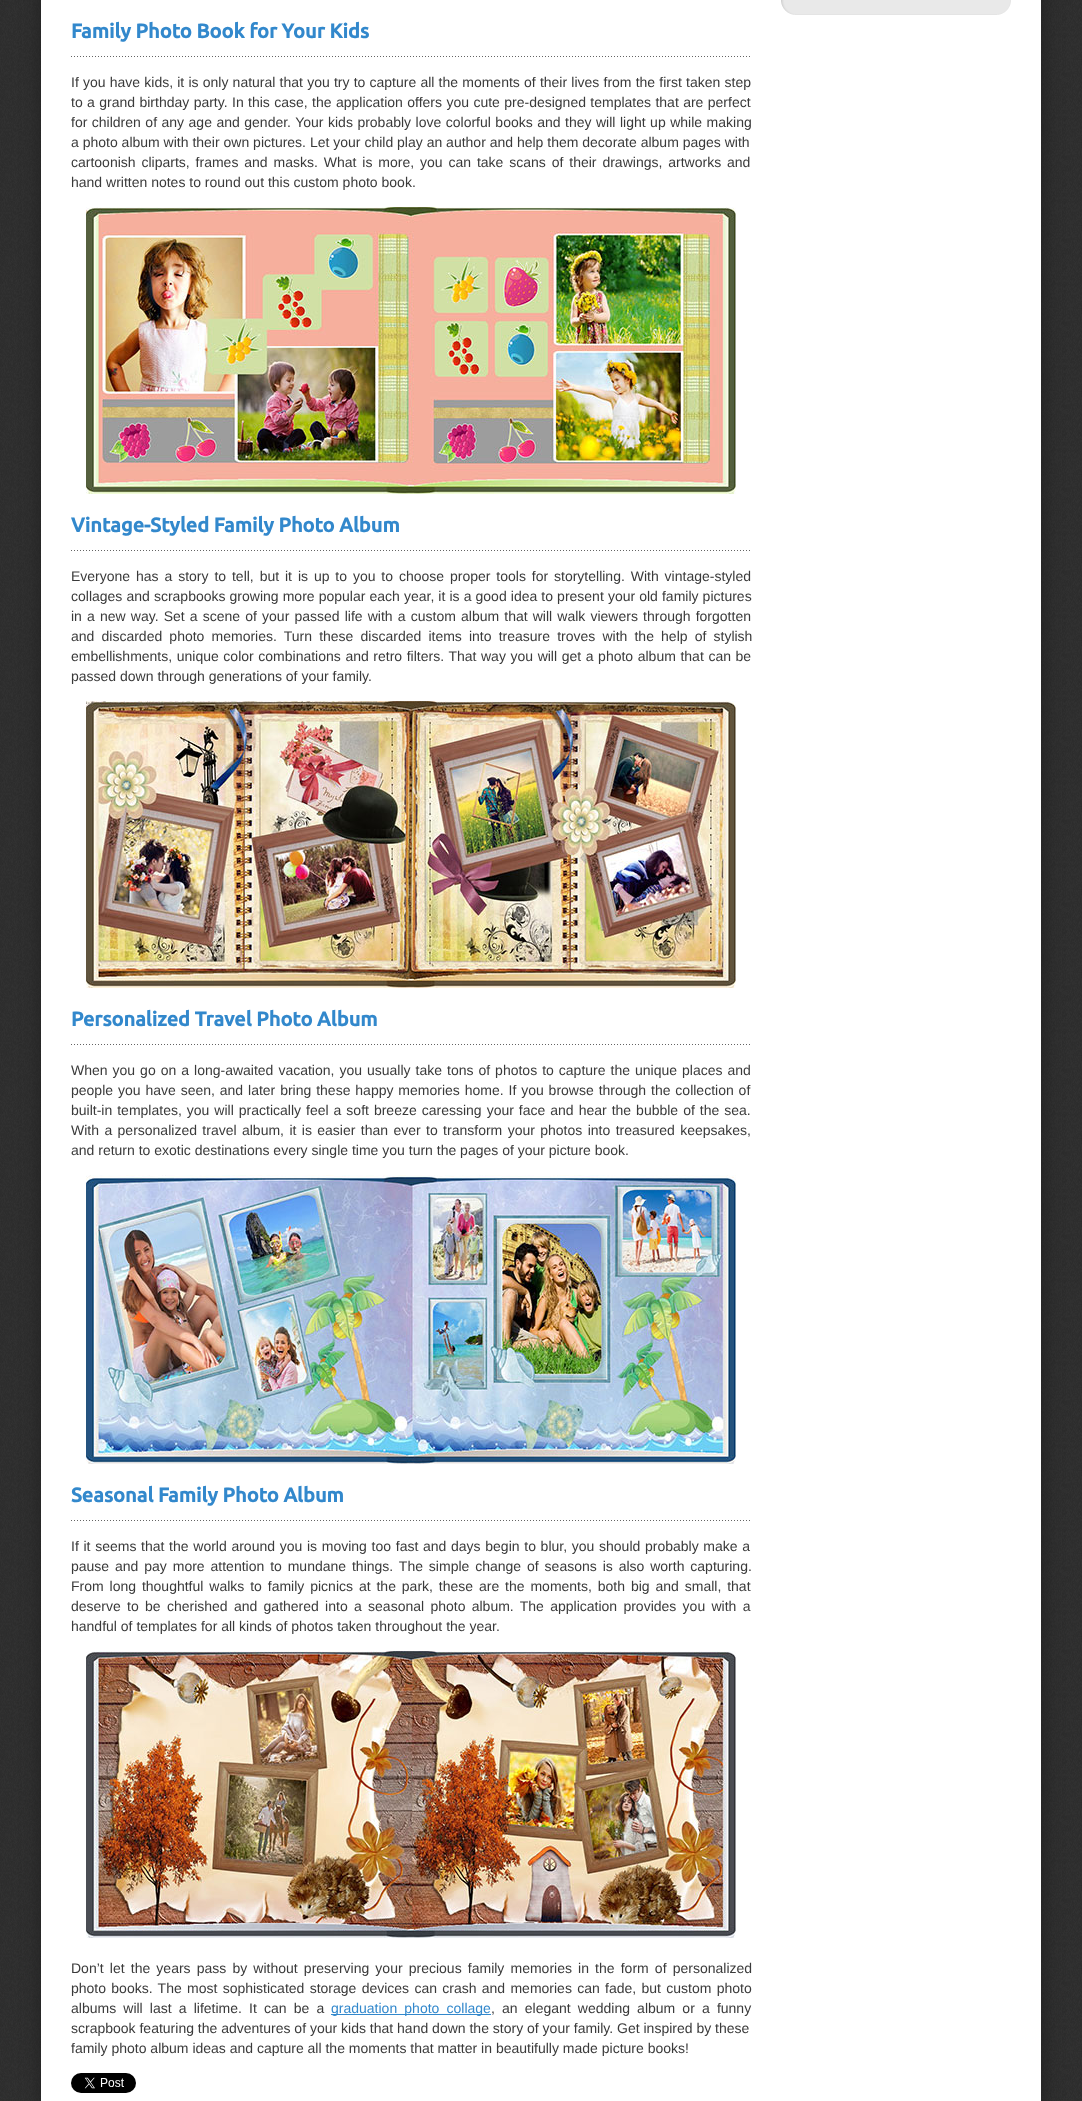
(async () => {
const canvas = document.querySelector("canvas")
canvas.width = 1082
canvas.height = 2101
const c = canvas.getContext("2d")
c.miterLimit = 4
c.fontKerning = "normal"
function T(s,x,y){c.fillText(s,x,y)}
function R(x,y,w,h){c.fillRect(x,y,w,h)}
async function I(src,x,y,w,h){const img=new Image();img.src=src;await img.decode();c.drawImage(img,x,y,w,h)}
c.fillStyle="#fff"
R(0,0,1082,2101)
await I("1.png",0,0,1082,2101)
c.fillStyle="#202020"
c.filter="blur(10px)"
c.beginPath()
c.roundRect(42,-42,1000,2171,12)
c.fill()
c.filter="none"
c.fillStyle="#fff"
R(41,0,1000,2101)
await I("2.png",781,0,230,2)
await I("3.png",781,2,230,13)
await I("4.png",71,56,679,1)
c.font="bold 20px Ubuntu"
c.fillStyle="#3288cc"
T("Family Photo Book for Your Kids",71,38)
c.wordSpacing="0.3px"
c.font="14px Liberation Sans"
c.fillStyle="#3a3a3a"
T("If you have kids, it is only natural that you try to capture all the moments of their lives from the first taken step",71,87)
c.wordSpacing="0.5px"
T("to a grand birthday party. In this case, the application offers you cute pre-designed templates that are perfect",71,107)
c.wordSpacing="0.6px"
T("for children of any age and gender. Your kids probably love colorful books and they will light up while making",71,127)
c.wordSpacing="0px"
T("a photo album with their own pictures. Let your child play an author and help them decorate album pages with",71,147)
c.wordSpacing="2px"
T("cartoonish cliparts, frames and masks. What is more, you can take scans of their drawings, artworks and",71,167)
c.wordSpacing="0px"
T("hand written notes to round out this custom photo book.",71,187)
await I("5.png",86,207,650,287)
await I("4.png",71,550,679,1)
c.font="bold 20px Ubuntu"
c.fillStyle="#3288cc"
T("Vintage-Styled Family Photo Album",71,532)
c.wordSpacing="2px"
c.font="14px Liberation Sans"
c.fillStyle="#3a3a3a"
T("Everyone has a story to tell, but it is up to you to choose proper tools for storytelling. With vintage-styled",71,581)
c.wordSpacing="0.2px"
T("collages and scrapbooks growing more popular each year, it is a good idea to present your old family pictures",71,601)
c.wordSpacing="1.25px"
T("in a new way. Set a scene of your passed life with a custom album that will walk viewers through forgotten",71,621)
c.wordSpacing="3.25px"
T("and discarded photo memories. Turn these discarded items into treasure troves with the help of stylish",71,641)
c.wordSpacing="0.7px"
T("embellishments, unique color combinations and retro filters. That way you will get a photo album that can be",71,661)
c.wordSpacing="0px"
T("passed down through generations of your family.",71,681)
await I("6.png",86,701,650,287)
await I("4.png",71,1044,679,1)
c.font="bold 20px Ubuntu"
c.fillStyle="#3288cc"
T("Personalized Travel Photo Album",71,1026)
c.wordSpacing="1.1px"
c.font="14px Liberation Sans"
c.fillStyle="#3a3a3a"
T("When you go on a long-awaited vacation, you usually take tons of photos to capture the unique places and",71,1075)
c.wordSpacing="1px"
T("people you have seen, and later bring these happy memories home. If you browse through the collection of",71,1095)
c.wordSpacing="1.1px"
T("built-in templates, you will practically feel a soft breeze caressing your face and hear the bubble of the sea.",71,1115)
c.wordSpacing="1.5px"
T("With a personalized travel album, it is easier than ever to transform your photos into treasured keepsakes,",71,1135)
c.wordSpacing="0px"
T("and return to exotic destinations every single time you turn the pages of your picture book.",71,1155)
await I("7.png",86,1175,650,289)
await I("4.png",71,1520,679,1)
c.font="bold 20px Ubuntu"
c.fillStyle="#3288cc"
T("Seasonal Family Photo Album",71,1502)
c.wordSpacing="0.8px"
c.font="14px Liberation Sans"
c.fillStyle="#3a3a3a"
T("If it seems that the world around you is moving too fast and days begin to blur, you should probably make a",71,1551)
c.wordSpacing="2px"
T("pause and pay more attention to mundane things. The simple change of seasons is also worth capturing.",71,1571)
T("From long thoughtful walks to family picnics at the park, these are the moments, both big and small, that",71,1591)
c.wordSpacing="2.4px"
T("deserve to be cherished and gathered into a seasonal photo album. The application provides you with a",71,1611)
c.wordSpacing="0px"
T("handful of templates for all kinds of photos taken throughout the year.",71,1631)
await I("8.png",86,1651,650,287)
c.wordSpacing="2.25px"
T("Don’t let the years pass by without preserving your precious family memories in the form of personalized",71,1973)
c.wordSpacing="1.4px"
T("photo books. The most sophisticated storage devices can crash and memories can fade, but custom photo",71,1993)
c.wordSpacing="3.25px"
T("albums will last a lifetime. It can be a",71,2013)
c.fillStyle="#3288cc"
R(331,2014,160,1)
T("graduation photo collage",331,2013)
c.fillStyle="#3a3a3a"
T(", an elegant wedding album or a funny",491,2013)
c.wordSpacing="0px"
T("scrapbook featuring the adventures of your kids that hand down the story of your family. Get inspired by these",71,2033)
T("family photo album ideas and capture all the moments that matter in beautifully made picture books!",71,2053)
await I("9.png",71,2073,65,20)
})()
